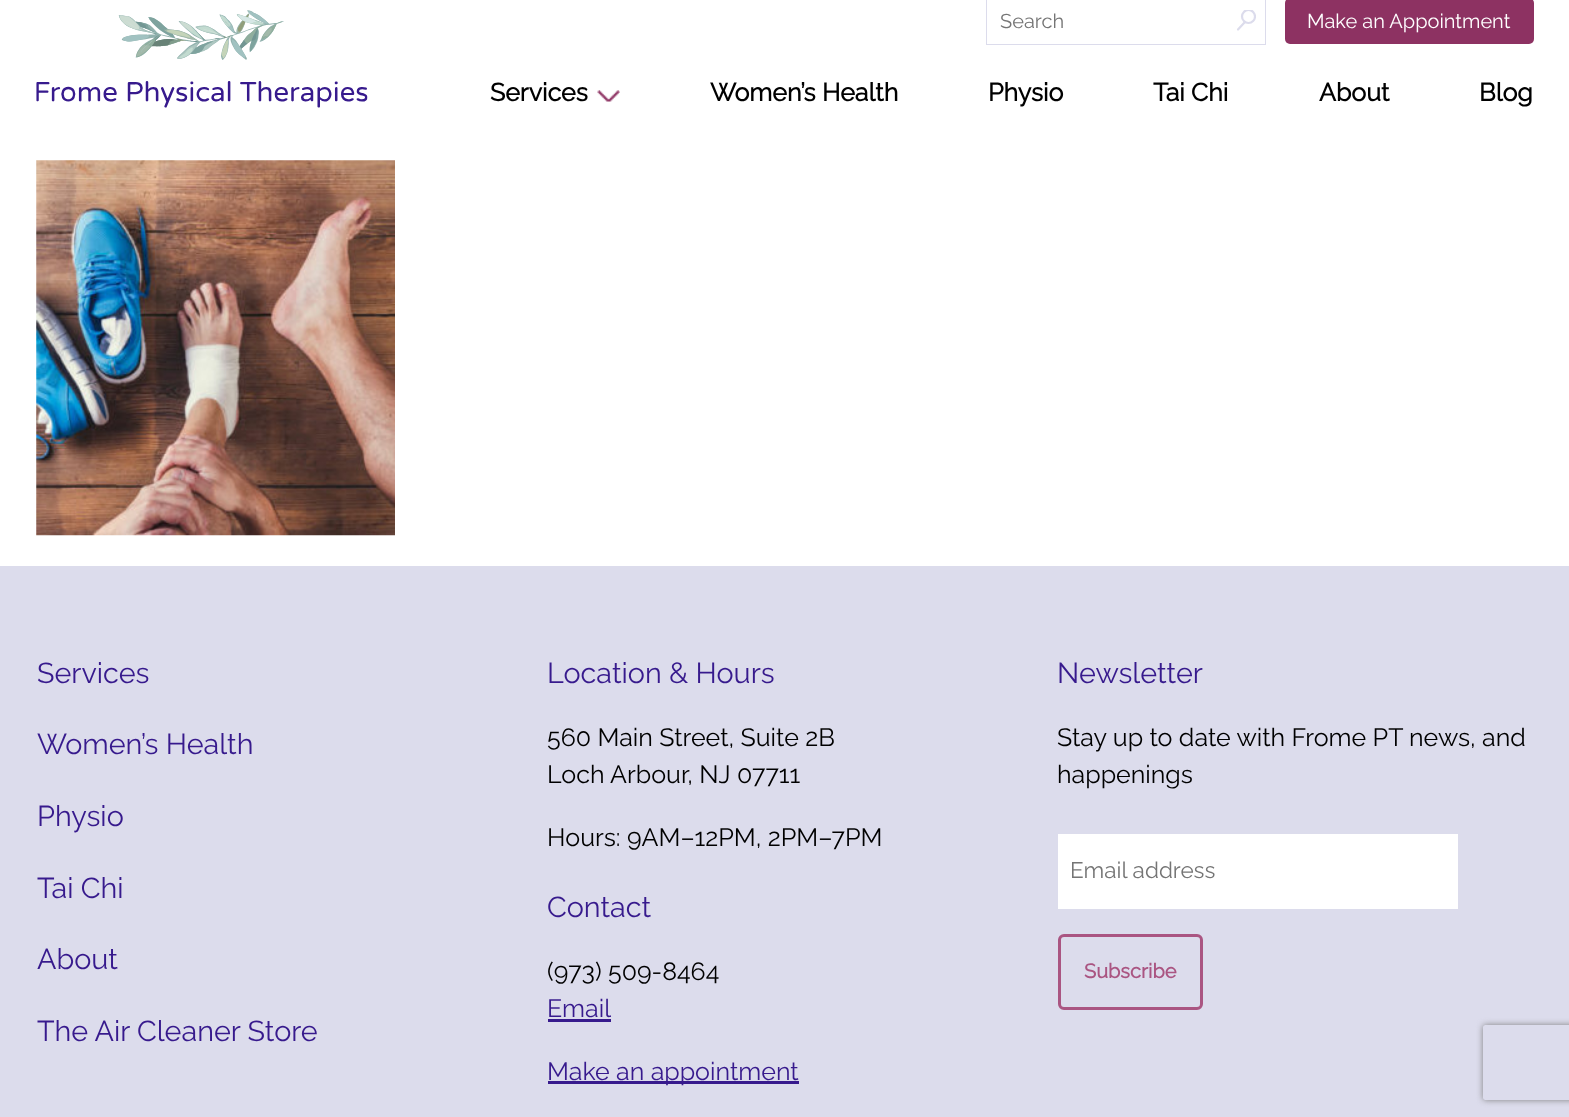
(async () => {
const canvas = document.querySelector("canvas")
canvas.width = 1569
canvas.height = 1117
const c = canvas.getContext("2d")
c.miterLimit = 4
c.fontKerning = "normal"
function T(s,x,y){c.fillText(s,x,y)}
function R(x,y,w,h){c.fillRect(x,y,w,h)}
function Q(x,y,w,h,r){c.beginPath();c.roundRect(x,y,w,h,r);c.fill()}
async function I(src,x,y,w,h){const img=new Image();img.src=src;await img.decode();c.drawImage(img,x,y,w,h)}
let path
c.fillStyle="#fff"
R(0,0,1569,1117)
await I("1.png",36,10,332,98)
c.strokeStyle="#dcdcec"
c.strokeRect(986.5,-.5,279,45)
c.font="100 20px Raleway"
c.fillStyle="#757575"
T("Search",1000,28)
c.save()
c.beginPath()
c.rect(1236,10,20,20)
c.clip()
c.beginPath()
c.arc(1248.5,16.5,6.5,0,7)
c.lineWidth=2.2
c.stroke()
c.restore()
path = new Path2D("M1244.5 22.5l-6.5 7")
c.lineWidth=2.2
c.lineCap="round"
c.stroke(path)
c.fillStyle="#8d3262"
Q(1285,-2,249,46,5)
c.fillStyle="#fff"
T("Make an Appointment",1307,28)
c.font="bold 25px Raleway"
c.fillStyle="#000"
T("Services",490,101)
await I("2.png",597,90,23,12)
T("Women’s Health",710,101)
T("Physio",988,101)
T("Tai Chi",1153,101)
T("About",1319,101)
T("Blog",1479,101)
await I("3.png",36,160,359,376)
c.fillStyle="#dcdcec"
R(0,566,1569,551)
c.font="100 28.75px Raleway"
c.fillStyle="#371a8d"
T("Services",37,683)
T("Women’s Health",37,754)
T("Physio",37,826)
T("Tai Chi",37,898)
T("About",37,969)
T("The Air Cleaner Store",37,1041)
T("Location & Hours",547,683)
c.font="100 25px Raleway"
c.fillStyle="#000"
T("560 Main Street, Suite 2B",547,746)
T("Loch Arbour, NJ 07711",547,783)
T("Hours: 9AM–12PM, 2PM–7PM",547,846)
c.font="100 28.75px Raleway"
c.fillStyle="#371a8d"
T("Contact",547,917)
c.font="100 25px Raleway"
c.fillStyle="#000"
T("(973) 509-8464",547,980)
c.fillStyle="#371a8d"
T("Email",547,1017)
R(548,1019,63,3)
R(548,1081,251,3)
T("Make an appointment",547,1080)
c.font="100 28.75px Raleway"
T("Newsletter",1057,683)
c.font="100 25px Raleway"
c.fillStyle="#000"
T("Stay up to date with Frome PT news, and",1057,746)
T("happenings",1057,783)
c.fillStyle="#fff"
R(1058,834,400,75)
c.font="100 22.5px Raleway"
c.fillStyle="#757575"
T("Email address",1070,878)
c.beginPath()
c.roundRect(1059.5,935.5,142,73,4.5)
c.strokeStyle="#aa5582"
c.lineWidth=3
c.stroke()
c.font="bold 20px Raleway"
c.fillStyle="#aa5582"
T("Subscribe",1084,978)
c.save()
path = new Path2D("M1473 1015h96v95h-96zm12.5 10h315c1.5 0 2.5 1 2.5 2.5v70c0 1.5-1 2.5-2.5 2.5h-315c-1.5 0-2.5-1-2.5-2.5v-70c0-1.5 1-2.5 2.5-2.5z")
c.clip(path,"evenodd")
c.fillStyle="#808080"
c.filter="blur(3px)"
c.beginPath()
c.roundRect(1483,1025,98,75,2.5)
c.fill()
c.filter="none"
c.restore()
})()
